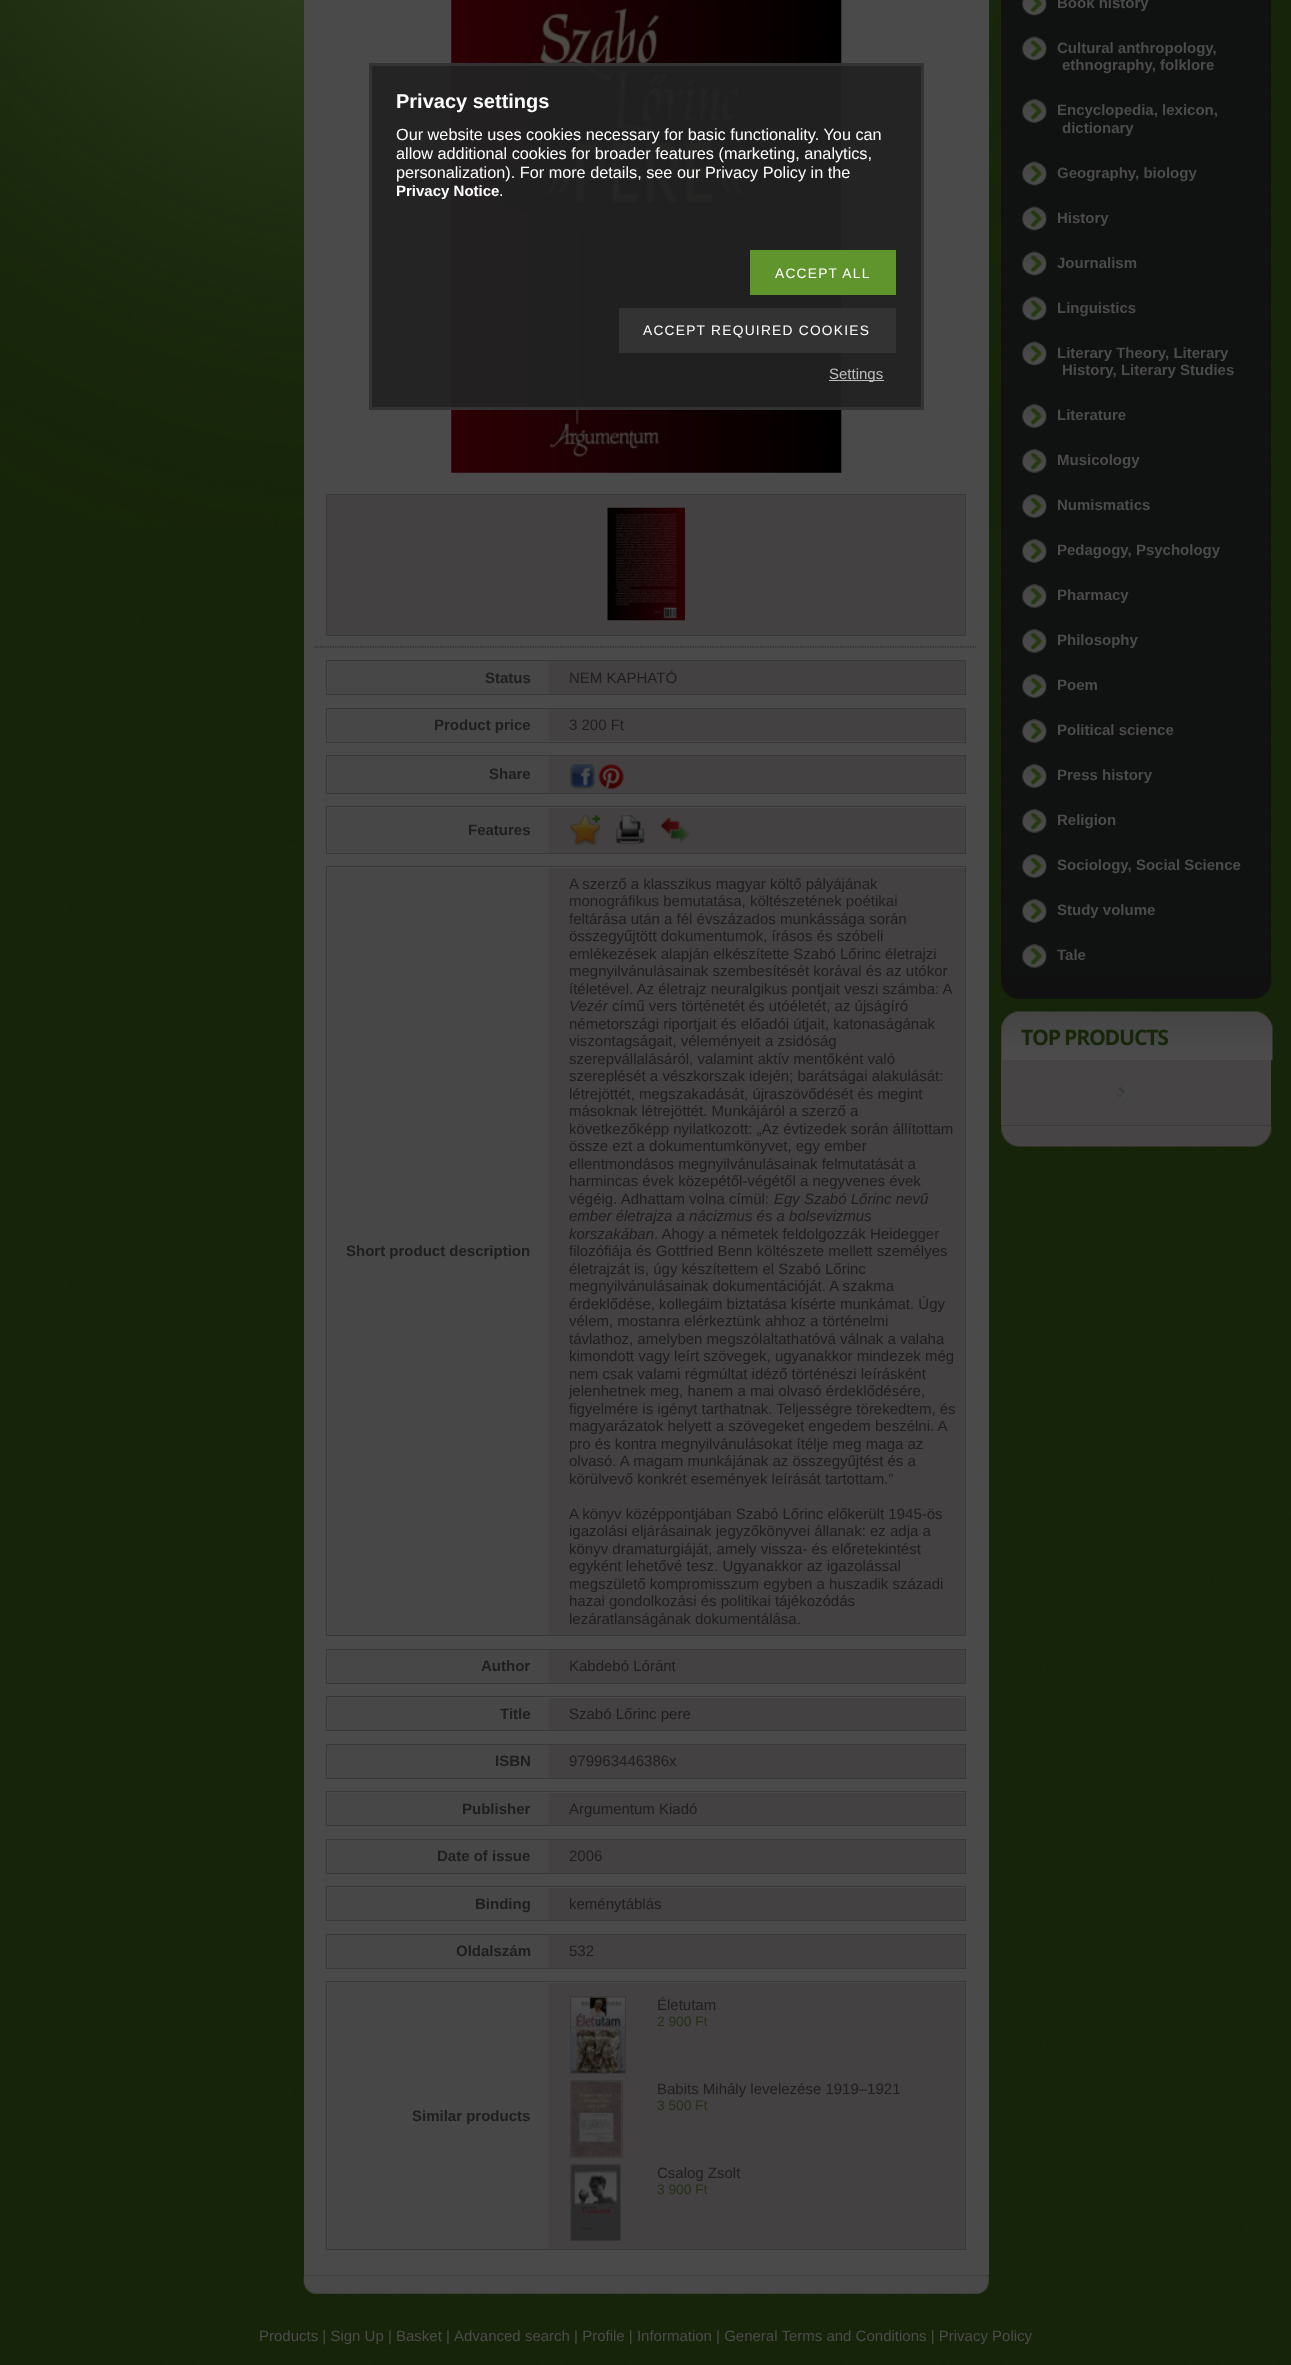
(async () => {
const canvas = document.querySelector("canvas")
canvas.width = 1291
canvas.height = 2365
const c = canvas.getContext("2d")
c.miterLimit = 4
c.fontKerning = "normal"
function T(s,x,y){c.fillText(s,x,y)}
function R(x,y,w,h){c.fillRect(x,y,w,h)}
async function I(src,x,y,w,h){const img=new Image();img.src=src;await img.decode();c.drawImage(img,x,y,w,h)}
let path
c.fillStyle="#fff"
R(0,0,1291,2365)
await I("1.png",0,0,1291,2365)
await I("2.png",0,0,1001,526)
await I("9.png",1001,977,271,22)
c.fillStyle="#101111"
R(1001,0,270,978)
await I("3.png",1022,0,25,16)
c.font="bold 15px Liberation Sans"
c.fillStyle="#4c4b4b"
T("Book history",1057,8)
await I("4.png",1022,36,25,25)
T("Cultural anthropology,",1057,53)
T("ethnography, folklore",1062,70)
await I("5.png",1022,99,25,24)
T("Encyclopedia, lexicon,",1057,115)
T("dictionary",1062,133)
await I("4.png",1022,161,25,25)
T("Geography, biology",1057,178)
await I("4.png",1022,206,25,25)
T("History",1057,223)
await I("4.png",1022,251,25,25)
T("Journalism",1057,268)
await I("6.png",1022,296,25,25)
T("Linguistics",1057,313)
await I("4.png",1022,341,25,25)
T("Literary Theory, Literary",1057,358)
T("History, Literary Studies",1062,375)
await I("7.png",1022,404,25,24)
T("Literature",1057,420)
await I("7.png",1022,449,25,24)
T("Musicology",1057,465)
await I("7.png",1022,494,25,24)
T("Numismatics",1057,510)
await I("7.png",1022,539,25,24)
T("Pedagogy, Psychology",1057,555)
await I("7.png",1022,584,25,24)
T("Pharmacy",1057,600)
await I("7.png",1022,629,25,24)
T("Philosophy",1057,645)
await I("8.png",1022,674,25,24)
T("Poem",1057,690)
await I("7.png",1022,719,25,24)
T("Political science",1057,735)
await I("7.png",1022,764,25,24)
T("Press history",1057,780)
await I("7.png",1022,809,25,24)
T("Religion",1057,825)
await I("7.png",1022,854,25,24)
T("Sociology, Social Science",1057,870)
await I("7.png",1022,899,25,24)
T("Study volume",1057,915)
await I("7.png",1022,944,25,24)
T("Tale",1057,960)
await I("10.png",1001,1011,272,50)
c.letterSpacing="-1.25px"
c.font="bold 21.25px Open Sans"
c.fillStyle="#172509"
T("TOP PRODUCTS",1021,1045)
c.fillStyle="#464444"
R(1001,1060,270,65)
await I("11.png",1116,1085,22,20)
await I("12.png",1001,1125,271,22)
c.fillStyle="#4a4a4a"
R(304,0,685,2275)
await I("13.png",451,0,391,473)
c.fillStyle="#434141"
c.beginPath()
c.rect(326.5,494.5,639,141)
c.fill()
c.strokeStyle="#383838"
c.stroke()
await I("14.png",607,507,78,114)
path = new Path2D("M315 647h662.5")
c.strokeStyle="#202020"
c.lineWidth=1.2
c.setLineDash([1.25,1.25])
c.stroke(path)
c.strokeStyle="#383838"
c.lineWidth=1
c.setLineDash([])
c.strokeRect(326.5,660.5,639,34)
c.fillStyle="#474747"
R(328,661,221,33)
c.letterSpacing="0px"
c.font="bold 15px Liberation Sans"
c.fillStyle="#1f1e1e"
T("Status",485,683)
c.fillStyle="#434141"
R(549,661,416,33)
c.font="15px Liberation Sans"
c.fillStyle="#1f1e1e"
T("NEM KAPHATÓ",569,683)
c.strokeRect(326.5,708.5,639,34)
c.fillStyle="#474747"
R(328,709,221,32)
c.font="bold 15px Liberation Sans"
c.fillStyle="#1f1e1e"
T("Product price",434,730)
c.fillStyle="#434141"
R(549,709,416,32)
c.font="15px Liberation Sans"
c.fillStyle="#1f1e1e"
T("3 200 Ft",569,730)
c.strokeRect(326.5,755.5,639,38)
c.fillStyle="#474747"
R(328,756,221,37)
c.font="bold 15px Liberation Sans"
c.fillStyle="#1f1e1e"
T("Share",489,779)
c.fillStyle="#434141"
R(549,756,416,37)
await I("15.png",570,764,25,25)
await I("16.png",598,764,26,25)
c.strokeRect(326.5,806.5,639,47)
c.fillStyle="#474747"
R(328,808,221,45)
c.fillStyle="#1f1e1e"
T("Features",468,835)
c.fillStyle="#434141"
R(549,808,416,45)
await I("17.png",570,815,30,31)
await I("18.png",616,815,29,30)
await I("19.png",661,817,29,26)
c.strokeRect(326.5,866.5,639,769)
c.fillStyle="#474747"
R(328,868,221,767)
c.fillStyle="#1f1e1e"
T("Short product description",346,1256)
c.fillStyle="#434141"
R(549,868,416,767)
c.font="15px Liberation Sans"
c.fillStyle="#1f1e1e"
T("A szerző a klasszikus magyar költő pályájának",569,889)
T("monográfikus bemutatása, költészetének poétikai",569,906)
T("feltárása után a fél évszázados munkássága során",569,924)
T("összegyűjtött dokumentumok, írásos és szóbeli",569,941)
T("emlékezések alapján elkészítette Szabó Lőrinc életrajzi",569,959)
T("megnyilvánulásainak szembesítését korával és az utókor",569,976)
T("ítéletével. Az életrajz neuralgikus pontjait veszi számba: A",569,994)
c.font="italic 15px Liberation Sans"
T("Vezér",569,1011)
c.font="15px Liberation Sans"
T("című vers történetét és utóéletét, az újságíró",612,1011)
T("németországi riportjait és előadói útjait, katonaságának",569,1029)
T("viszontagságait, véleményeit a zsidóság",569,1046)
T("szerepvállalásáról, valamint aktív mentőként való",569,1064)
T("szereplését a vészkorszak idején; barátságai alakulását:",569,1081)
T("létrejöttét, megszakadását, újraszövődését és megint",569,1099)
T("másoknak létrejöttét. Munkájáról a szerző a",569,1116)
T("következőképp nyilatkozott: „Az évtizedek során állítottam",569,1134)
T("össze ezt a dokumentumkönyvet, egy ember",569,1151)
T("ellentmondásos megnyilvánulásainak felmutatását a",569,1169)
T("harmincas évek közepétől-végétől a negyvenes évek",569,1186)
T("végéig. Adhattam volna címül:",569,1204)
c.font="italic 15px Liberation Sans"
T("Egy Szabó Lőrinc nevű",774,1204)
T("ember életrajza a nácizmus és a bolsevizmus",569,1221)
T("korszakában",569,1239)
c.font="15px Liberation Sans"
T(". Ahogy a németek feldolgozzák Heidegger",654,1239)
T("filozófiája és Gottfried Benn költészete mellett személyes",569,1256)
T("életrajzát is, úgy készítettem el Szabó Lőrinc",569,1274)
T("megnyilvánulásainak dokumentációját. A szakma",569,1291)
T("érdeklődése, kollegáim biztatása kísérte munkámat. Úgy",569,1309)
T("vélem, mostanra elérkeztünk ahhoz a történelmi",569,1326)
T("távlathoz, amelyben megszólaltathatóvá válnak a valaha",569,1344)
T("kimondott vagy leírt szövegek, ugyanakkor mindezek még",569,1361)
T("nem csak valami régmúltat idéző történészi leírásként",569,1379)
T("jelenhetnek meg, hanem a mai olvasó érdeklődésére,",569,1396)
T("figyelmére is igényt tarthatnak. Teljességre törekedtem, és",569,1414)
T("magyarázatok helyett a szövegeket engedem beszélni. A",569,1431)
T("pro és kontra megnyilvánulásokat ítélje meg maga az",569,1449)
T("olvasó. A magam munkájának az összegyűjtést és a",569,1466)
T("körülvevő konkrét események leírását tartottam.”",569,1484)
T("A könyv középpontjában Szabó Lőrinc előkerült 1945-ös",569,1519)
T("igazolási eljárásainak jegyzőkönyvei állanak: ez adja a",569,1536)
T("könyv dramaturgiáját, amely vissza- és előretekintést",569,1554)
T("egyként lehetővé tesz. Ugyanakkor az igazolással",569,1571)
T("megszülető kompromisszum egyben a huszadik századi",569,1589)
T("hazai gondolkozási és politikai tájékozódás",569,1606)
T("lezáratlanságának dokumentálása.",569,1624)
c.strokeRect(326.5,1649.5,639,34)
c.fillStyle="#474747"
R(328,1650,221,33)
c.font="bold 15px Liberation Sans"
c.fillStyle="#1f1e1e"
T("Author",481,1671)
c.fillStyle="#434141"
R(549,1650,416,33)
c.font="15px Liberation Sans"
c.fillStyle="#1f1e1e"
T("Kabdebó Lóránt",569,1671)
c.strokeRect(326.5,1696.5,639,34)
c.fillStyle="#474747"
R(328,1698,221,32)
c.font="bold 15px Liberation Sans"
c.fillStyle="#1f1e1e"
T("Title",500,1719)
c.fillStyle="#434141"
R(549,1698,416,32)
c.font="15px Liberation Sans"
c.fillStyle="#1f1e1e"
T("Szabó Lőrinc pere",569,1719)
c.strokeRect(326.5,1744.5,639,34)
c.fillStyle="#474747"
R(328,1745,221,33)
c.font="bold 15px Liberation Sans"
c.fillStyle="#1f1e1e"
T("ISBN",495,1766)
c.fillStyle="#434141"
R(549,1745,416,33)
c.font="15px Liberation Sans"
c.fillStyle="#1f1e1e"
T("979963446386x",569,1766)
c.strokeRect(326.5,1791.5,639,34)
c.fillStyle="#474747"
R(328,1793,221,32)
c.font="bold 15px Liberation Sans"
c.fillStyle="#1f1e1e"
T("Publisher",462,1814)
c.fillStyle="#434141"
R(549,1793,416,32)
c.font="15px Liberation Sans"
c.fillStyle="#1f1e1e"
T("Argumentum Kiadó",569,1814)
c.strokeRect(326.5,1839.5,639,34)
c.fillStyle="#474747"
R(328,1840,221,33)
c.font="bold 15px Liberation Sans"
c.fillStyle="#1f1e1e"
T("Date of issue",437,1861)
c.fillStyle="#434141"
R(549,1840,416,33)
c.font="15px Liberation Sans"
c.fillStyle="#1f1e1e"
T("2006",569,1861)
c.strokeRect(326.5,1886.5,639,34)
c.fillStyle="#474747"
R(328,1888,221,32)
c.font="bold 15px Liberation Sans"
c.fillStyle="#1f1e1e"
T("Binding",475,1909)
c.fillStyle="#434141"
R(549,1888,416,32)
c.font="15px Liberation Sans"
c.fillStyle="#1f1e1e"
T("keménytáblás",569,1909)
c.strokeRect(326.5,1934.5,639,34)
c.fillStyle="#474747"
R(328,1935,221,33)
c.font="bold 15px Liberation Sans"
c.fillStyle="#1f1e1e"
T("Oldalszám",456,1956)
c.fillStyle="#434141"
R(549,1935,416,33)
c.font="15px Liberation Sans"
c.fillStyle="#1f1e1e"
T("532",569,1956)
c.strokeRect(326.5,1981.5,639,268)
c.fillStyle="#474747"
R(328,1983,221,266)
c.font="bold 15px Liberation Sans"
c.fillStyle="#1f1e1e"
T("Similar products",412,2121)
c.fillStyle="#434141"
R(549,1983,416,266)
c.strokeRect(570.5,1996.5,55,77)
await I("20.png",571,1997,54,76)
c.font="15px Liberation Sans"
c.fillStyle="#1f1e1e"
T("Életutam",657,2010)
c.font="13.75px Liberation Sans"
c.fillStyle="#232f17"
T("2 900 Ft",657,2026)
c.strokeRect(570.5,2080.5,52,77)
await I("21.png",571,2081,51,76)
c.font="15px Liberation Sans"
c.fillStyle="#1f1e1e"
T("Babits Mihály levelezése 1919–1921",657,2094)
c.font="13.75px Liberation Sans"
c.fillStyle="#232f17"
T("3 500 Ft",657,2110)
c.strokeRect(570.5,2164.5,50,76)
await I("22.png",571,2165,49,76)
c.font="15px Liberation Sans"
c.fillStyle="#1f1e1e"
T("Csalog Zsolt",657,2178)
c.font="13.75px Liberation Sans"
c.fillStyle="#232f17"
T("3 900 Ft",657,2194)
await I("23.png",303,2275,686,19)
c.font="15px Liberation Sans"
c.fillStyle="#4c4b4b"
T("Products | Sign Up | Basket",259,2341)
T("|",446,2341)
T("Advanced search | Profile | Information | General Terms and Conditions | Privacy Policy",454,2341)
c.fillStyle="#222222f2"
c.beginPath()
c.rect(370.5,64.5,552,344)
c.fill()
c.strokeStyle="#333"
c.lineWidth=3
c.stroke()
c.font="bold 20px Liberation Sans"
c.fillStyle="#fff"
T("Privacy settings",396,108)
c.font="16.25px Liberation Sans"
T("Our website uses cookies necessary for basic functionality. You can",396,140)
T("allow additional cookies for broader features (marketing, analytics,",396,159)
T("personalization). For more details, see our Privacy Policy in the",396,178)
c.font="bold 15px Liberation Sans"
T("Privacy Notice",396,196)
c.font="16.25px Liberation Sans"
T(".",499,196)
c.fillStyle="#60952d"
R(750,250,146,45)
c.letterSpacing="1.25px"
c.font="13.75px Liberation Sans"
c.fillStyle="#fff"
T("ACCEPT ALL",775,278)
c.fillStyle="#333"
R(619,308,277,45)
c.fillStyle="#fff"
T("ACCEPT REQUIRED COOKIES",643,335)
c.fillStyle="#ffffffb3"
R(829,380,55,1)
c.letterSpacing="0px"
c.font="15px Liberation Sans"
c.fillStyle="#bebebe"
T("Settings",829,379)
})()
